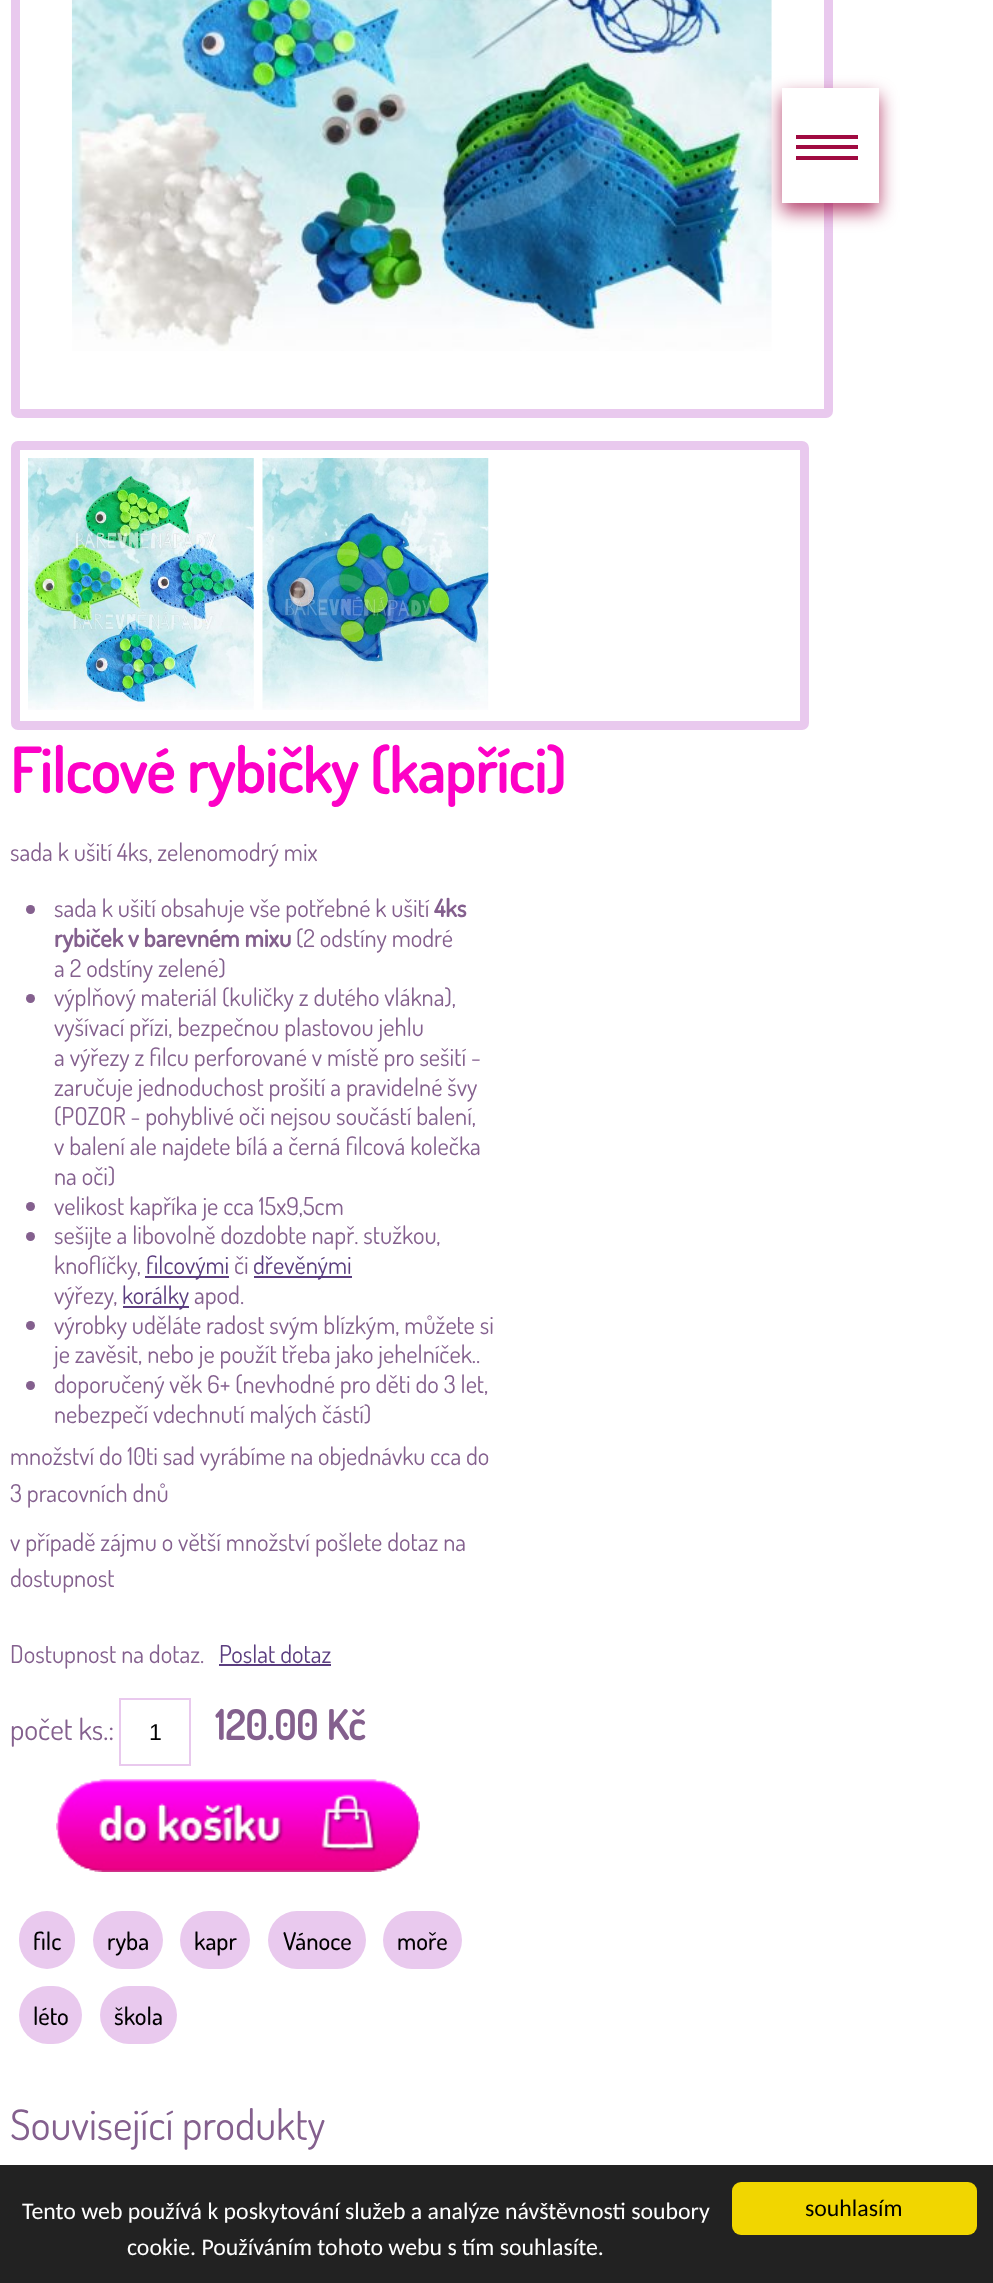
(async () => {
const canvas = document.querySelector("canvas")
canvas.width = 993
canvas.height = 2283
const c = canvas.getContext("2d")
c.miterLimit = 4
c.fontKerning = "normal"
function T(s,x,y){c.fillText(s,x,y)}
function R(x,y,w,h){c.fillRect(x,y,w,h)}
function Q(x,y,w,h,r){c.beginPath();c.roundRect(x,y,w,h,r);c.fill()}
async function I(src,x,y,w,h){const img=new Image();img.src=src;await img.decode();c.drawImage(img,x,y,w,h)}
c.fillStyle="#fff"
R(0,0,993,2283)
c.beginPath()
c.roundRect(15.5,-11.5,813,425,2.5)
c.strokeStyle="#e9c9ee"
c.lineWidth=9
c.stroke()
await I("1.png",71,0,701,351)
c.fillStyle="#a00a41bf"
c.filter="blur(9px)"
c.beginPath()
c.rect(782,96,97,116)
c.fill()
c.filter="none"
c.fillStyle="#fff"
R(782,88,97,115)
c.fillStyle="#a00a41"
R(796,156,62,4)
R(796,135,62,4)
R(796,145,62,4)
c.beginPath()
c.roundRect(15.5,445.5,789,280,2.5)
c.stroke()
await I("2.png",28,458,226,252)
await I("3.png",262,458,227,252)
c.font="bold 61.25px Dosis"
c.fillStyle="#fd01c6"
T("Filcové rybičky (kapříci)",10,793)
c.font="24.5px Dosis"
c.fillStyle="#84608e"
T("sada k ušití 4ks, zelenomodrý mix",10,861)
c.beginPath()
c.arc(30.5,909.5,4.5,0,7)
c.fill()
T("sada k ušití obsahuje vše potřebné k ušití",54,917)
c.font="bold 24.5px Dosis"
T("4ks",434,917)
T("rybiček v barevném mixu",54,947)
c.font="24.5px Dosis"
T("(2 odstíny modré",296,947)
T("a 2 odstíny zelené)",54,977)
c.beginPath()
c.arc(30.5,998.5,4.5,0,7)
c.fill()
T("výplňový materiál (kuličky z dutého vlákna),",54,1006)
T("vyšívací přízi, bezpečnou plastovou jehlu",54,1036)
T("a výřezy z filcu perforované v místě pro sešití -",54,1066)
T("zaručuje jednoduchost prošití a pravidelné švy",54,1096)
T("(POZOR - pohyblivé oči nejsou součástí balení,",54,1125)
T("v balení ale najdete bílá a černá filcová kolečka",54,1155)
T("na oči)",54,1185)
c.beginPath()
c.arc(30.5,1206.5,4.5,0,7)
c.fill()
T("velikost kapříka je cca 15x9,5cm",54,1215)
c.beginPath()
c.arc(30.5,1236.5,4.5,0,7)
c.fill()
T("sešijte a libovolně dozdobte např. stužkou,",54,1244)
T("knoflíčky,",54,1274)
c.fillStyle="#5b3d7f"
R(145,1276,84,2)
T("filcovými",146,1274)
c.fillStyle="#84608e"
T("či",234,1274)
c.fillStyle="#5b3d7f"
R(254,1276,98,2)
T("dřevěnými",253,1274)
c.fillStyle="#84608e"
T("výřezy,",54,1304)
c.fillStyle="#5b3d7f"
R(123,1306,66,2)
T("korálky",122,1304)
c.fillStyle="#84608e"
T("apod.",194,1304)
c.beginPath()
c.arc(30.5,1325.5,4.5,0,7)
c.fill()
T("výrobky uděláte radost svým blízkým, můžete si",54,1334)
T("je zavěsit, nebo je použít třeba jako jehelníček..",54,1363)
c.beginPath()
c.arc(30.5,1385.5,4.5,0,7)
c.fill()
T("doporučený věk 6+ (nevhodné pro děti do 3 let,",54,1393)
T("nebezpečí vdechnutí malých částí)",54,1423)
T("množství do 10ti sad vyrábíme na objednávku cca do",10,1465)
T("3 pracovních dnů",10,1502)
T("v případě zájmu o větší množství pošlete dotaz na",10,1551)
T("dostupnost",10,1587)
T("Dostupnost na dotaz.",10,1663)
c.fillStyle="#5b3d7f"
T("Poslat dotaz",219,1663)
R(219,1664,112,2)
c.font="29.5px Dosis"
c.fillStyle="#84608e"
T("počet ks.:",10,1740)
c.lineWidth=2
c.strokeRect(120,1699,70,66)
c.font="23px Liberation Sans"
c.fillStyle="#000"
T("1",149,1740)
c.font="bold 41px Dosis"
c.fillStyle="#84608e"
T("120.00 Kč",215,1740)
await I("4.png",56,1779,364,93)
c.fillStyle="#e9c9ee"
Q(19,1911,56,58,28)
c.font="500 24.5px Dosis"
c.fillStyle="#000"
T("filc",33,1950)
c.fillStyle="#e9c9ee"
Q(93,1911,70,58,29)
c.fillStyle="#000"
T("ryba",107,1950)
c.fillStyle="#e9c9ee"
Q(180,1911,70,58,29)
c.fillStyle="#000"
T("kapr",194,1950)
c.fillStyle="#e9c9ee"
Q(268,1911,98,58,29)
c.fillStyle="#000"
T("Vánoce",283,1950)
c.fillStyle="#e9c9ee"
Q(383,1911,79,58,29)
c.fillStyle="#000"
T("moře",397,1950)
c.fillStyle="#e9c9ee"
Q(19,1986,63,58,29)
c.fillStyle="#000"
T("léto",33,2025)
c.fillStyle="#e9c9ee"
Q(100,1986,77,58,29)
c.fillStyle="#000"
T("škola",114,2025)
c.font="42px Dosis"
c.fillStyle="#84608e"
T("Související produkty",10,2140)
c.fillStyle="#222"
R(0,2165,993,118)
c.font="23.8px Carlito"
c.fillStyle="#fff"
T("Tento web používá k poskytování služeb a analýze návštěvnosti soubory",22,2219)
T("cookie. Používáním tohoto webu s tím souhlasíte.",127,2255)
c.fillStyle="#f1d600"
Q(732,2182,245,53,9)
c.fillStyle="#000"
T("souhlasím",805,2216)
})()
